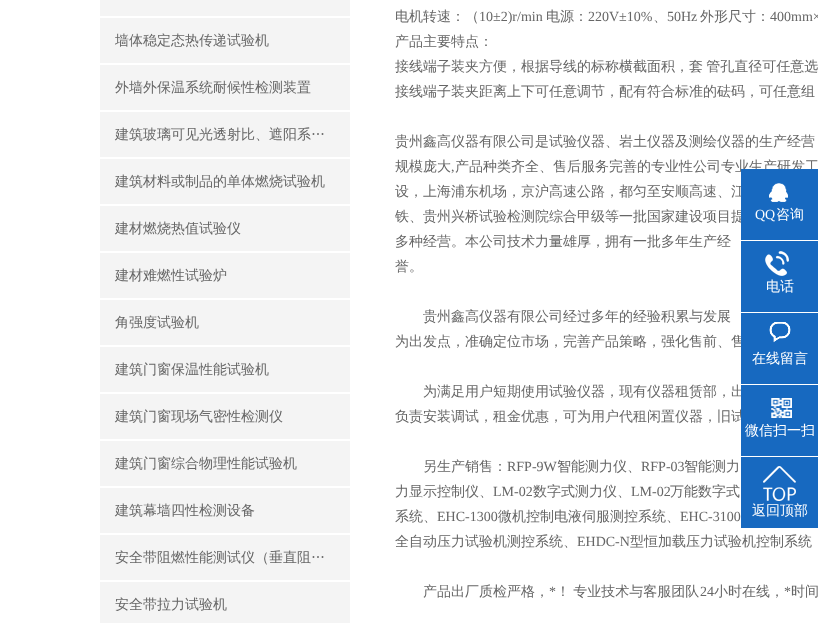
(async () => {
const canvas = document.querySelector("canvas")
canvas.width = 818
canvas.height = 623
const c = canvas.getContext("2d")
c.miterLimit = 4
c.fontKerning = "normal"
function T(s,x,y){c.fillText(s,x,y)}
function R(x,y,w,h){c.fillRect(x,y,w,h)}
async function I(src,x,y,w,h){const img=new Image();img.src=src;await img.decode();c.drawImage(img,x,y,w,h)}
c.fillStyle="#fff"
R(0,0,818,623)
c.fillStyle="#f4f4f4"
R(100,0,250,16)
R(100,18,250,45)
c.font="500 14px WenQuanYi Zen Hei"
c.fillStyle="#666"
T("墙体稳定态热传递试验机",115,45)
c.fillStyle="#f4f4f4"
R(100,65,250,45)
c.fillStyle="#666"
T("外墙外保温系统耐候性检测装置",115,92)
c.fillStyle="#f4f4f4"
R(100,112,250,45)
c.fillStyle="#666"
T("建筑玻璃可见光透射比、遮阳系…",115,139)
c.fillStyle="#f4f4f4"
R(100,159,250,45)
c.fillStyle="#666"
T("建筑材料或制品的单体燃烧试验机",115,186)
c.fillStyle="#f4f4f4"
R(100,206,250,45)
c.fillStyle="#666"
T("建材燃烧热值试验仪",115,233)
c.fillStyle="#f4f4f4"
R(100,253,250,45)
c.fillStyle="#666"
T("建材难燃性试验炉",115,280)
c.fillStyle="#f4f4f4"
R(100,300,250,45)
c.fillStyle="#666"
T("角强度试验机",115,327)
c.fillStyle="#f4f4f4"
R(100,347,250,45)
c.fillStyle="#666"
T("建筑门窗保温性能试验机",115,374)
c.fillStyle="#f4f4f4"
R(100,394,250,45)
c.fillStyle="#666"
T("建筑门窗现场气密性检测仪",115,421)
c.fillStyle="#f4f4f4"
R(100,441,250,45)
c.fillStyle="#666"
T("建筑门窗综合物理性能试验机",115,468)
c.fillStyle="#f4f4f4"
R(100,488,250,45)
c.fillStyle="#666"
T("建筑幕墙四性检测设备",115,515)
c.fillStyle="#f4f4f4"
R(100,535,250,45)
c.fillStyle="#666"
T("安全带阻燃性能测试仪（垂直阻…",115,562)
c.fillStyle="#f4f4f4"
R(100,582,250,41)
c.fillStyle="#666"
T("安全带拉力试验机",115,609)
T("电机转速：（",395,21)
c.font="14px Liberation Serif"
T("10±2)r/min",479,21)
c.font="500 14px WenQuanYi Zen Hei"
T("电源：",546,21)
c.font="14px Liberation Serif"
T("220V±10%",588,21)
c.font="500 14px WenQuanYi Zen Hei"
T("、",653,21)
c.font="14px Liberation Serif"
T("50Hz",667,21)
c.font="500 14px WenQuanYi Zen Hei"
T("外形尺寸：",700,21)
c.font="14px Liberation Serif"
T("400mm×",770,21)
c.font="500 14px WenQuanYi Zen Hei"
T("产品主要特点：",395,46)
c.wordSpacing="-1px"
T("接线端子装夹方便，根据导线的标称横截面积，套 管孔直径可任意选",395,71)
c.wordSpacing="0px"
T("接线端子装夹距离上下可任意调节，配有符合标准的砝码，可任意组",395,96)
T("贵州鑫高仪器有限公司是试验仪器、岩土仪器及测绘仪器的生产经营",395,146)
T("规模庞大",395,171)
c.font="14px Liberation Serif"
T(",",451,171)
c.font="500 14px WenQuanYi Zen Hei"
T("产品种类齐全、售后服务完善的专业性公司专业生产研发工",455,171)
T("设，上海浦东机场，京沪高速公路，都匀至安顺高速、江",395,196)
T("铁、贵州兴桥试验检测院综合甲级等一批国家建设项目提",395,221)
T("多种经营。本公司技术力量雄厚，拥有一批多年生产经",395,246)
T("誉。",395,271)
T("贵州鑫高仪器有限公司经过多年的经验积累与发展",423,321)
T("为出发点，准确定位市场，完善产品策略，强化售前、售",395,346)
T("为满足用户短期使用试验仪器，现有仪器租赁部，出",423,396)
T("负责安装调试，租金优惠，可为用户代租闲置仪器，旧试",395,421)
T("另生产销售：",423,471)
c.font="14px Liberation Serif"
T("RFP-9W",507,471)
c.font="500 14px WenQuanYi Zen Hei"
T("智能测力仪、",557,471)
c.font="14px Liberation Serif"
T("RFP-03",641,471)
c.font="500 14px WenQuanYi Zen Hei"
T("智能测力",684,471)
T("力显示控制仪、",395,496)
c.font="14px Liberation Serif"
T("LM-02",493,496)
c.font="500 14px WenQuanYi Zen Hei"
T("数字式测力仪、",533,496)
c.font="14px Liberation Serif"
T("LM-02",631,496)
c.font="500 14px WenQuanYi Zen Hei"
T("万能数字式",670,496)
T("系统、",395,521)
c.font="14px Liberation Serif"
T("EHC-1300",437,521)
c.font="500 14px WenQuanYi Zen Hei"
T("微机控制电液伺服测控系统、",498,521)
c.font="14px Liberation Serif"
T("EHC-3100",680,521)
c.font="500 14px WenQuanYi Zen Hei"
T("全自动压力试验机测控系统、",395,546)
c.font="14px Liberation Serif"
T("EHDC-N",577,546)
c.font="500 14px WenQuanYi Zen Hei"
T("型恒加载压力试验机控制系统",630,546)
T("产品出厂质检严格，",423,596)
c.font="14px Liberation Serif"
T("*",549,596)
c.wordSpacing="-1px"
c.font="500 14px WenQuanYi Zen Hei"
T("！ 专业技术与客服团队",556,596)
c.wordSpacing="0px"
c.font="14px Liberation Serif"
T("24",700,596)
c.font="500 14px WenQuanYi Zen Hei"
T("小时在线，",714,596)
c.font="14px Liberation Serif"
T("*",784,596)
c.font="500 14px WenQuanYi Zen Hei"
T("时间",791,596)
c.fillStyle="#1769c0"
R(741,169,77,71)
await I("1.png",769,183,19,19)
c.font="14px Liberation Serif"
c.fillStyle="#fff"
T("QQ",755,219)
c.font="500 14px WenQuanYi Zen Hei"
T("咨询",776,219)
c.fillStyle="#1769c0"
R(741,241,77,71)
await I("2.png",765,251,24,25)
c.fillStyle="#fff"
T("电话",766,291)
c.fillStyle="#1769c0"
R(741,313,77,71)
await I("3.png",769,322,22,21)
c.fillStyle="#fff"
T("在线留言",752,363)
c.fillStyle="#1769c0"
R(741,385,77,71)
await I("4.png",771,398,21,20)
c.fillStyle="#fff"
T("微信扫一扫",745,435)
c.fillStyle="#1769c0"
R(741,457,77,71)
await I("5.png",763,466,33,35)
c.fillStyle="#fff"
T("返回顶部",752,515)
})()
